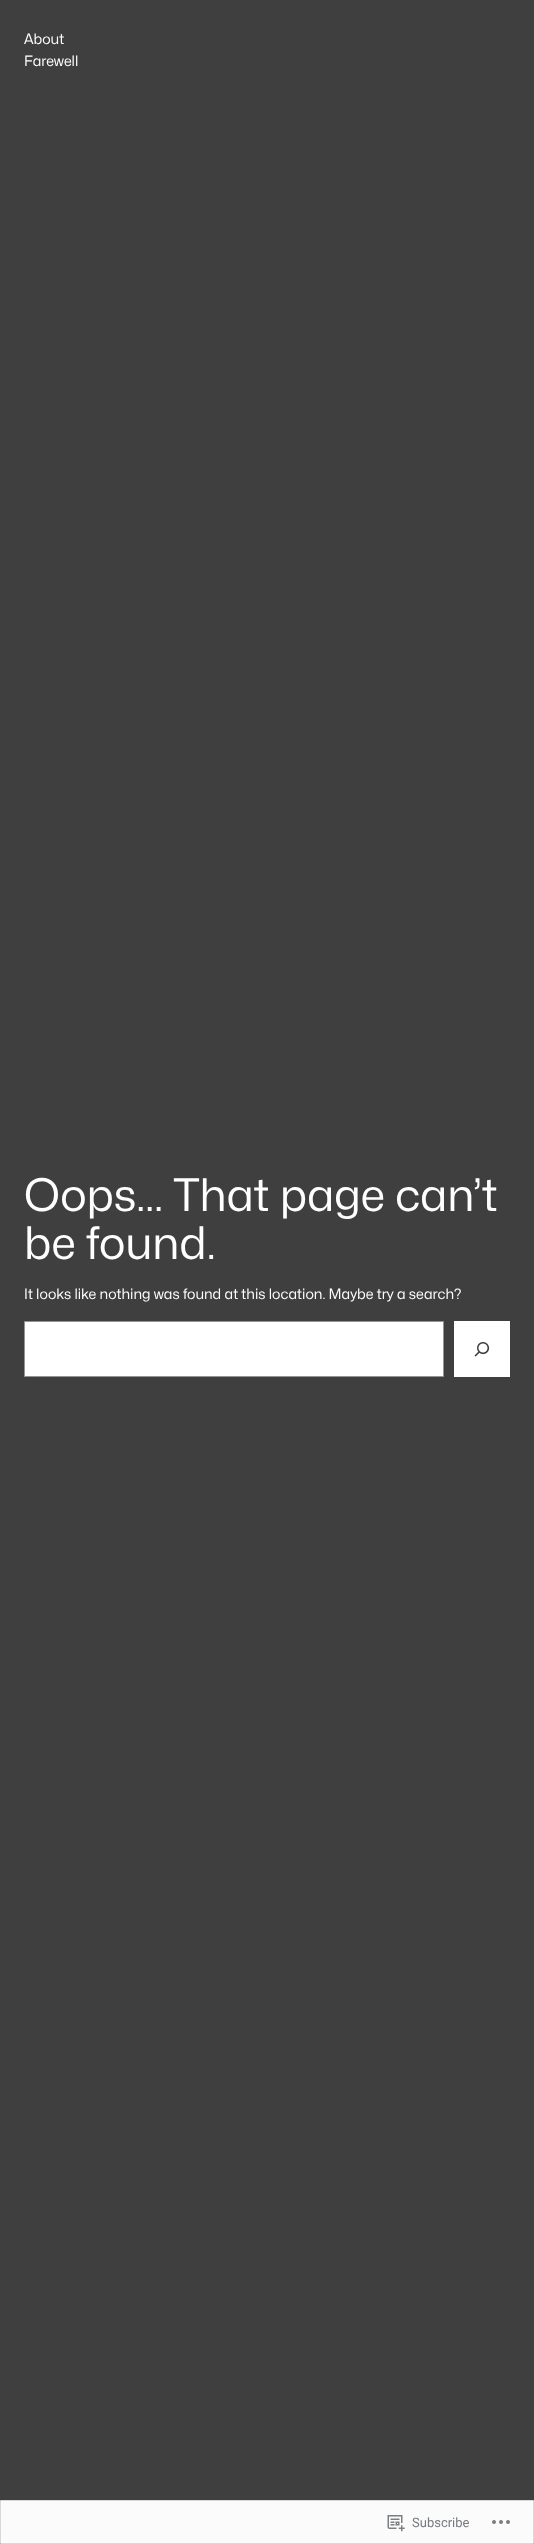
(async () => {
const canvas = document.querySelector("canvas")
canvas.width = 534
canvas.height = 2544
const c = canvas.getContext("2d")
c.miterLimit = 4
c.fontKerning = "normal"
function T(s,x,y){c.fillText(s,x,y)}
function R(x,y,w,h){c.fillRect(x,y,w,h)}
async function I(src,x,y,w,h){const img=new Image();img.src=src;await img.decode();c.drawImage(img,x,y,w,h)}
c.fillStyle="#3f3f3f"
R(0,0,534,2544)
c.font="14.3px Mona Sans"
c.fillStyle="#fff"
T("About",24,44)
T("Farewell",24,66)
c.font="45px Mona Sans"
T("Oops… That page can’t",24,1211)
T("be found.",24,1259)
c.font="14.3px Mona Sans"
T("It looks like nothing was found at this location. Maybe try a search?",24,1299)
c.beginPath()
c.rect(24.5,1321.5,419,55)
c.fill()
c.strokeStyle="#949494"
c.stroke()
R(454,1321,56,56)
await I("1.png",474,1342,16,15)
c.fillStyle="#fbfbfb"
c.beginPath()
c.rect(.5,2500.5,533,43)
c.fill()
c.strokeStyle="#d9d9db"
c.stroke()
await I("2.png",387,2515,18,17)
c.font="13px Roboto"
c.fillStyle="#777b81"
T("Subscribe",412,2527)
await I("3.png",492,2520,18,4)
})()
